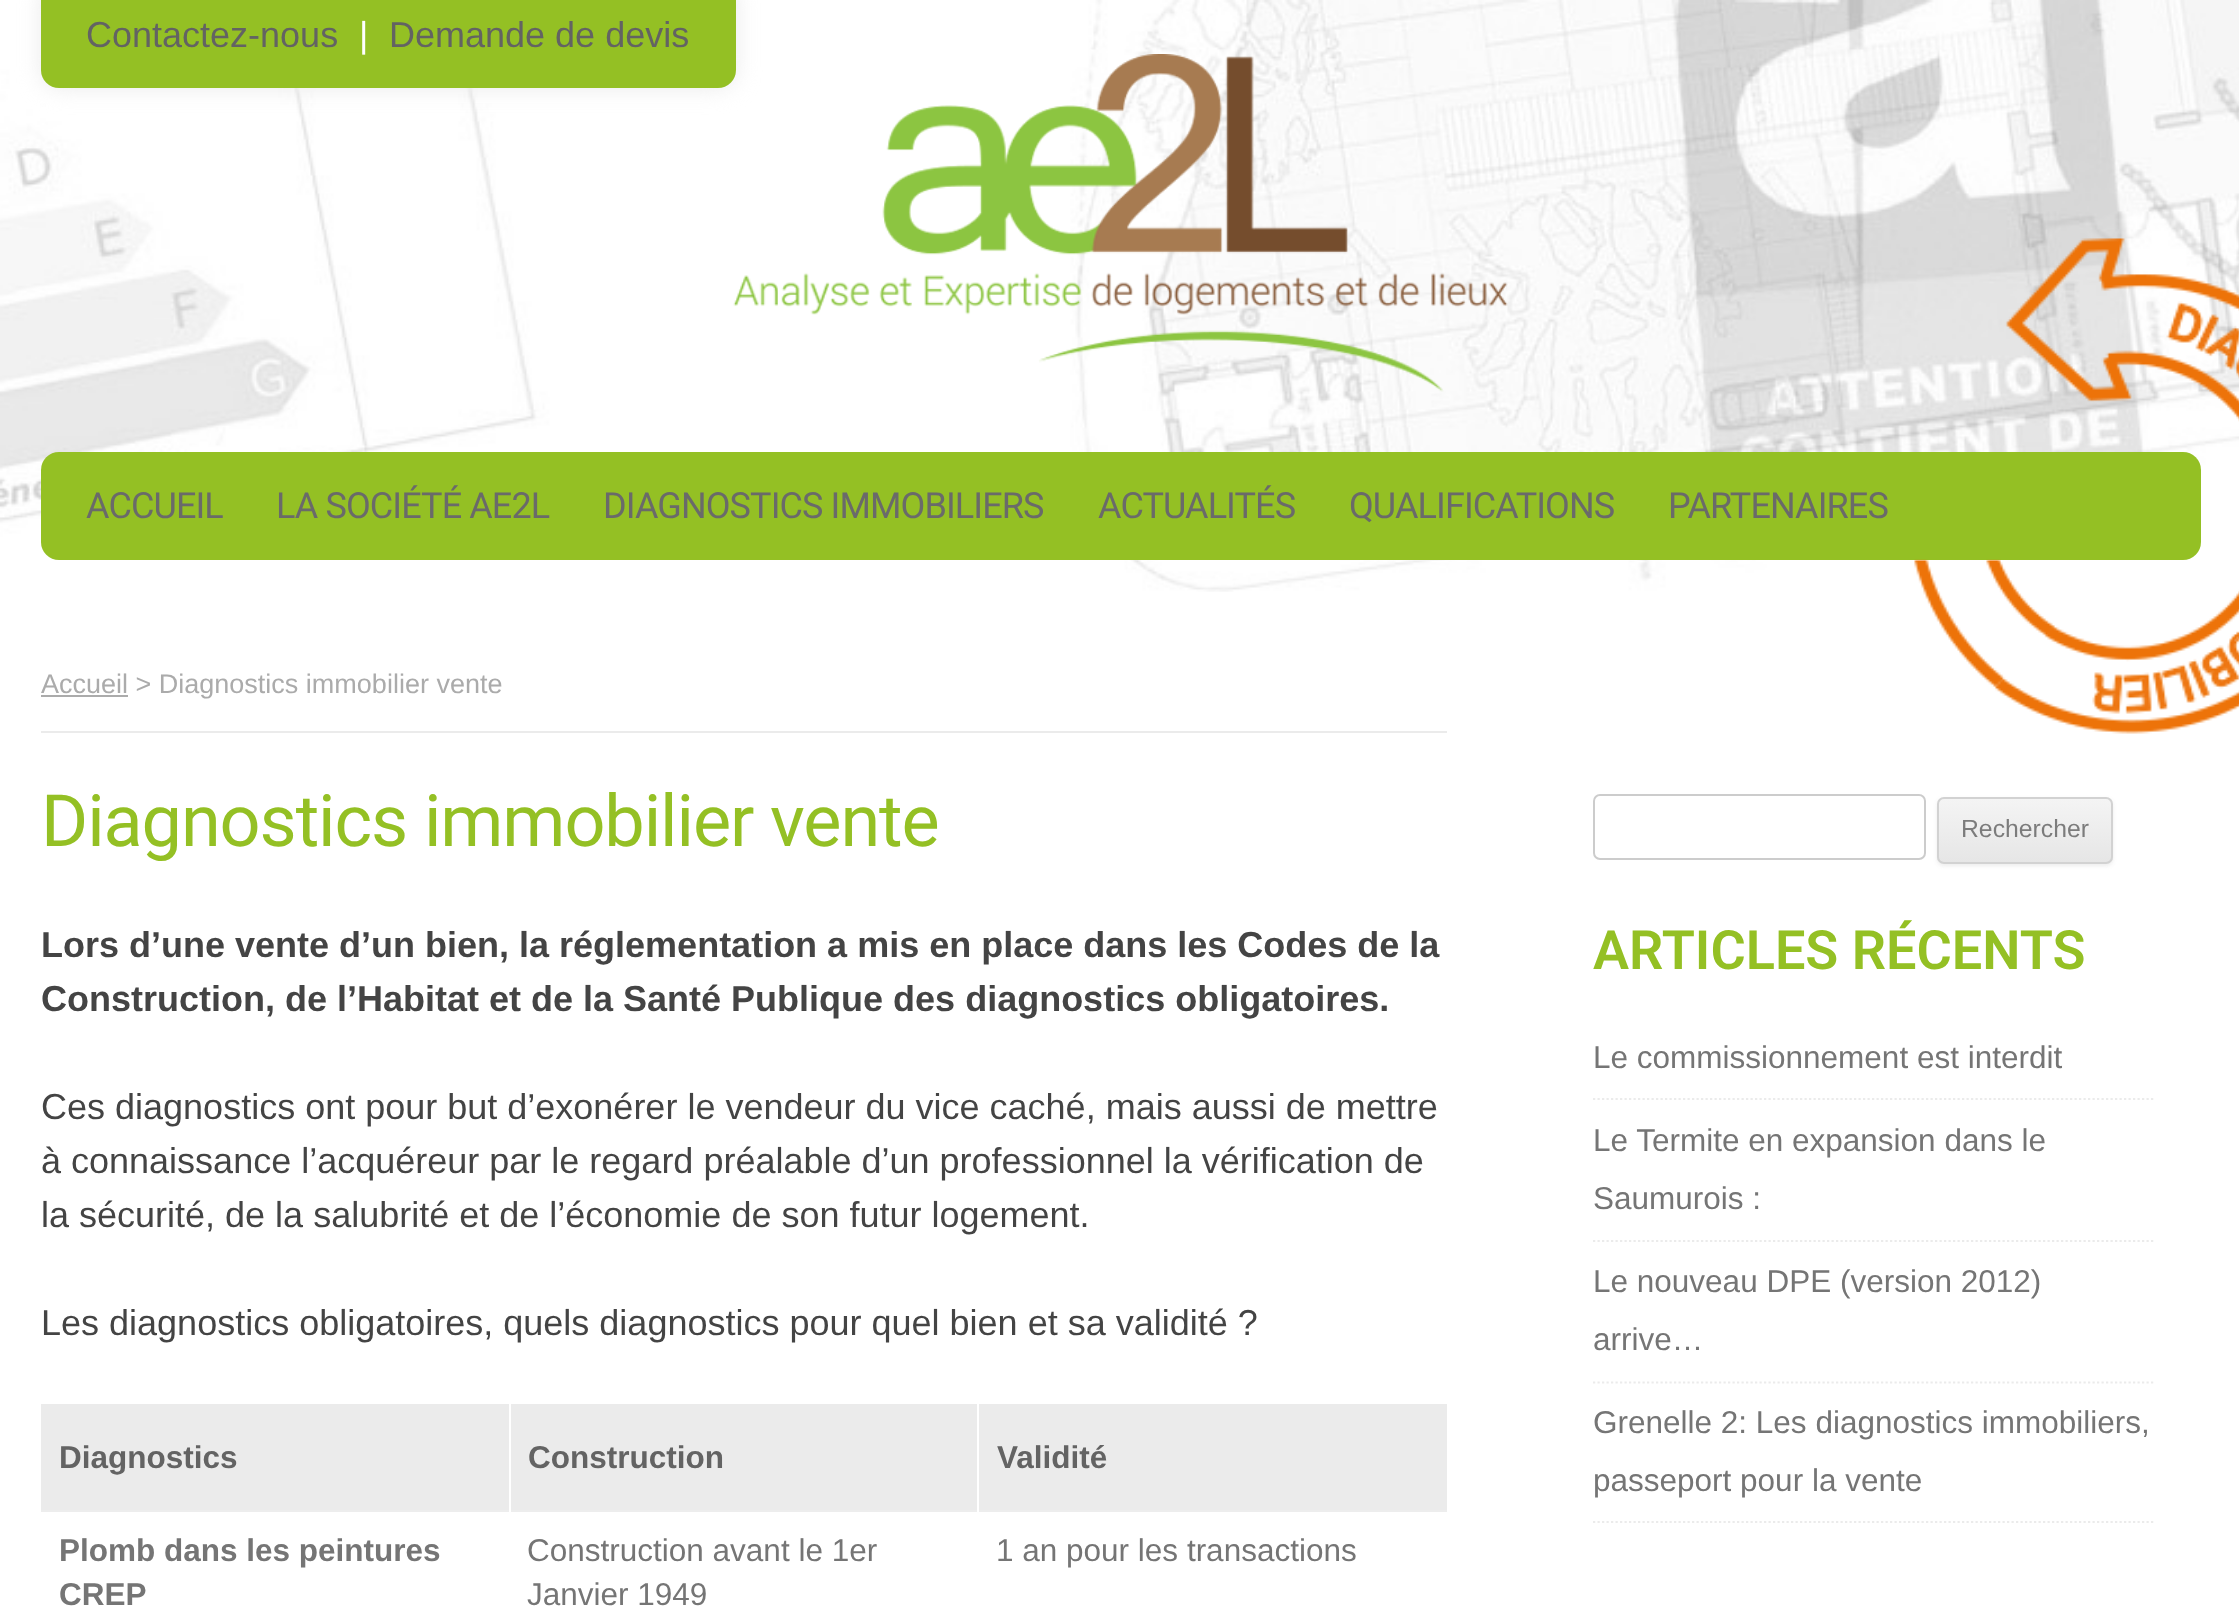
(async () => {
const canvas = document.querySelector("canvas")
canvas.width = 2239
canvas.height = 1609
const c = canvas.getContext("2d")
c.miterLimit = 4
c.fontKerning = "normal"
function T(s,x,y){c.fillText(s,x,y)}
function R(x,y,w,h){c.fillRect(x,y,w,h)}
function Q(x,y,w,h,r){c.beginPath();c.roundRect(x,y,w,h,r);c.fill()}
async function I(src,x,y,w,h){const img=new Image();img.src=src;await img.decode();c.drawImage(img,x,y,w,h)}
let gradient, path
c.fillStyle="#fff"
R(0,0,2239,1609)
await I("1.png",0,0,2239,592)
await I("2.png",733,54,775,338)
c.fillStyle="#ebebeb"
c.filter="blur(11px)"
c.beginPath()
c.roundRect(41,-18,695,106,18)
c.fill()
c.filter="none"
c.fillStyle="#94c024"
Q(41,-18,695,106,18)
c.font="36px Liberation Sans"
c.fillStyle="#636363"
T("Contactez-nous",86,47)
c.fillStyle="#fff"
T("|",359,47)
c.fillStyle="#636363"
T("Demande de devis",389,47)
c.fillStyle="#94c024"
Q(41,452,2160,108,18)
c.letterSpacing="-0.9px"
c.font="36px Roboto"
c.fillStyle="#6a6a6a"
T("ACCUEIL",86,518)
T("LA SOCIÉTÉ AE2L",276,518)
T("DIAGNOSTICS IMMOBILIERS",603,518)
T("ACTUALITÉS",1098,518)
T("QUALIFICATIONS",1349,518)
T("PARTENAIRES",1668,518)
await I("3.png",1914,238,325,496)
c.fillStyle="#ebebeb"
R(41,731,1406,2)
c.fillStyle="#ababab"
R(41,695,87,2)
c.letterSpacing="0px"
c.font="27px Liberation Sans"
T("Accueil > Diagnostics immobilier vente",41,693)
c.letterSpacing="-1.1px"
c.font="72px Roboto"
c.fillStyle="#94c024"
T("Diagnostics immobilier vente",41,846)
c.letterSpacing="0px"
c.font="bold 36px Liberation Sans"
c.fillStyle="#444"
T("Lors d’une vente d’un bien, la réglementation a mis en place dans les Codes de la",41,957)
T("Construction, de l’Habitat et de la Santé Publique des diagnostics obligatoires.",41,1011)
c.font="36px Liberation Sans"
T("Ces diagnostics ont pour but d’exonérer le vendeur du vice caché, mais aussi de mettre",41,1119)
T("à connaissance l’acquéreur par le regard préalable d’un professionnel la vérification de",41,1173)
T("la sécurité, de la salubrité et de l’économie de son futur logement.",41,1227)
T("Les diagnostics obligatoires, quels diagnostics pour quel bien et sa validité ?",41,1335)
c.fillStyle="#ebebeb"
R(41,1404,468,106)
c.fillStyle="#ededed"
R(41,1510,1406,2)
c.fillStyle="#fff"
R(509,1510,2,2)
c.font="bold 31.5px Liberation Sans"
c.fillStyle="#636363"
T("Diagnostics",59,1468)
c.fillStyle="#ebebeb"
R(511,1404,466,106)
c.fillStyle="#fff"
R(977,1510,2,2)
c.fillStyle="#636363"
T("Construction",528,1468)
c.fillStyle="#ebebeb"
R(979,1404,468,106)
c.fillStyle="#636363"
T("Validité",997,1468)
c.fillStyle="#757575"
T("Plomb dans les peintures",59,1561)
T("CREP",59,1605)
c.font="31.5px Liberation Sans"
T("Construction avant le 1er",527,1561)
T("Janvier 1949",527,1605)
T("1 an pour les transactions",996,1561)
c.beginPath()
c.roundRect(1594,795,331,64,6)
c.strokeStyle="#ccc"
c.lineWidth=2
c.stroke()
c.fillStyle="#4040401a"
c.filter="blur(2px)"
c.beginPath()
c.roundRect(1937,799,176,67,7)
c.fill()
c.filter="none"
c.save()
c.beginPath()
c.roundRect(1937,797,176,67,7)
c.clip()
gradient = c.createLinearGradient(2025,799,2025,862)
gradient.addColorStop(0,"#f4f4f4")
gradient.addColorStop(1,"#e6e6e6")
c.fillStyle = gradient
R(1937,799,176,63)
c.restore()
c.beginPath()
c.roundRect(1938,798,174,65,6)
c.strokeStyle="#d2d2d2"
c.stroke()
c.font="24.75px Liberation Sans"
c.fillStyle="#7c7c7c"
T("Rechercher",1961,837)
c.font="600 54px Roboto"
c.fillStyle="#94c024"
T("ARTICLES RÉCENTS",1593,969)
path = new Path2D("M1593 1099h562.5")
c.strokeStyle="#ebebeb"
c.lineWidth=2.2
c.setLineDash([2.25,2.25])
c.stroke(path)
c.font="31.5px Liberation Sans"
c.fillStyle="#757575"
T("Le commissionnement est interdit",1593,1068)
path = new Path2D("M1593 1241h562.5")
c.stroke(path)
T("Le Termite en expansion dans le",1593,1151)
T("Saumurois :",1593,1209)
path = new Path2D("M1593 1382.5h562.5")
c.stroke(path)
T("Le nouveau DPE (version 2012)",1593,1292)
T("arrive…",1593,1350)
path = new Path2D("M1593 1522h562.5")
c.stroke(path)
T("Grenelle 2: Les diagnostics immobiliers,",1593,1433)
T("passeport pour la vente",1593,1491)
})()
